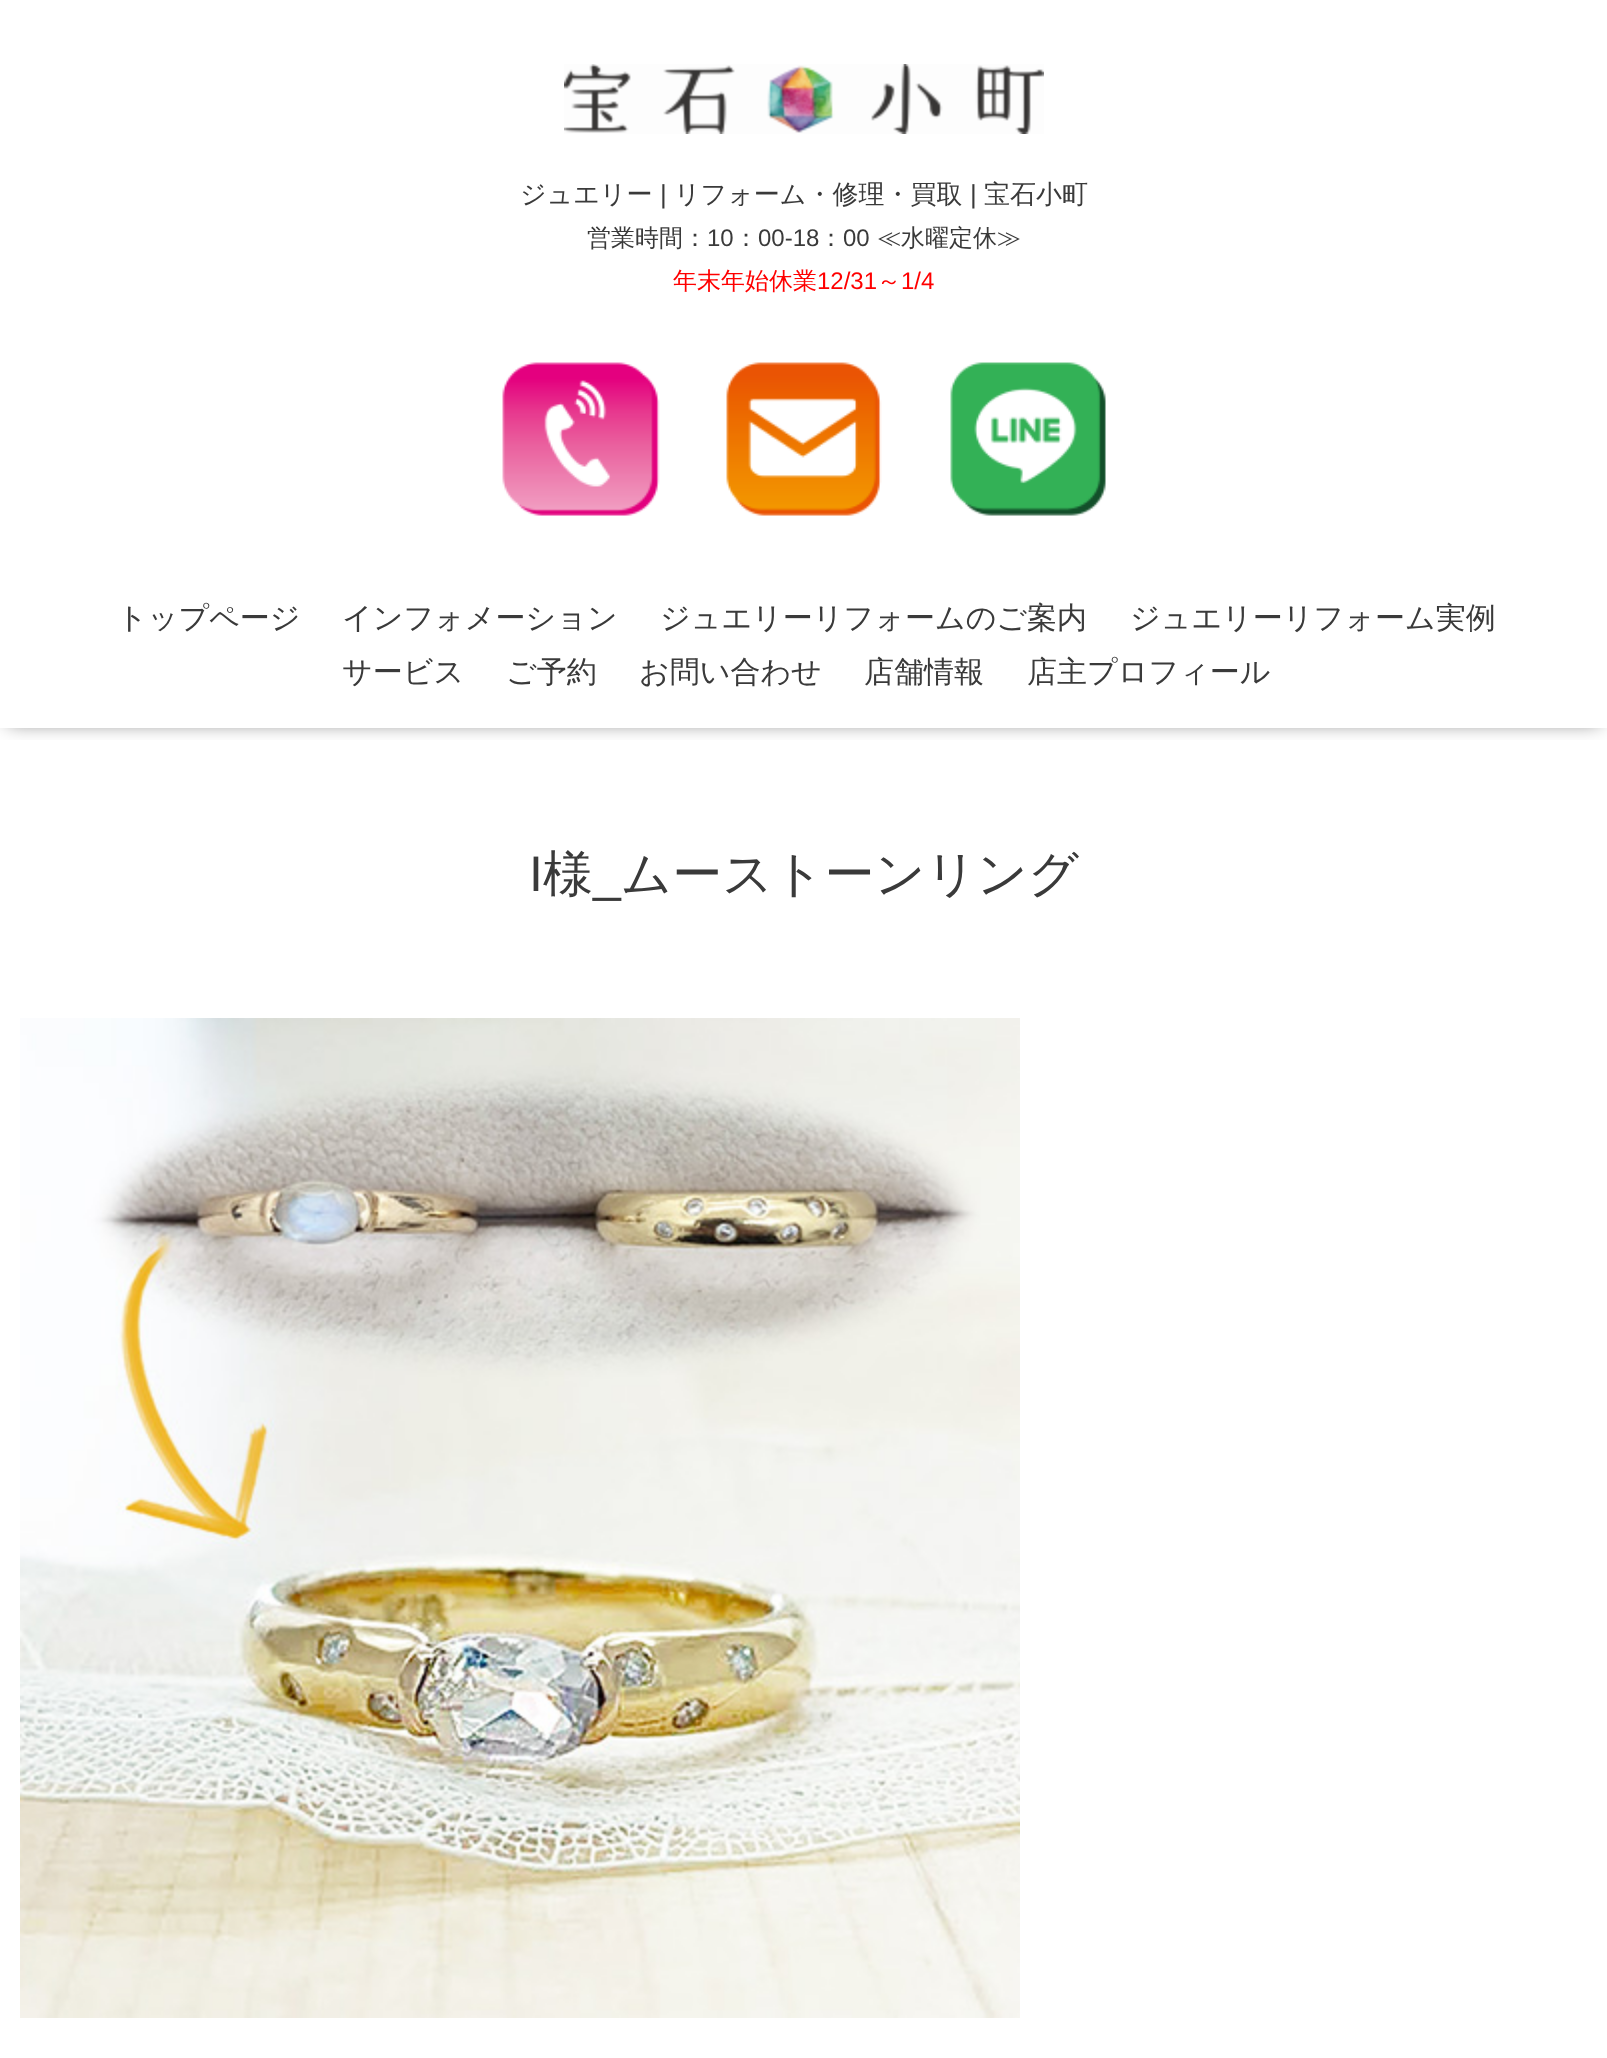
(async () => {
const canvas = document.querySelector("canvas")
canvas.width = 1607
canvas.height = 2058
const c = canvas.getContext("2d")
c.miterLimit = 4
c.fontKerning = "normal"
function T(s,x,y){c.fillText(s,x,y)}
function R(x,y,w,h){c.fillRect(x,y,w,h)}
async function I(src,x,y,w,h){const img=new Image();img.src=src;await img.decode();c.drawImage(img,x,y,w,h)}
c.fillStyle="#fff"
R(0,0,1607,2058)
c.save()
c.beginPath()
c.rect(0,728,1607,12)
c.clip()
c.fillStyle="#00000099"
c.filter="blur(10px)"
c.beginPath()
c.rect(8,10,1592,712)
c.fill()
c.filter="none"
c.restore()
await I("1.png",564,64,480,70)
c.font="500 26px WenQuanYi Zen Hei"
c.fillStyle="#3a3a3a"
T("ジュエリー",520,203)
c.font="26px Liberation Sans"
T("|",660,203)
c.font="500 26px WenQuanYi Zen Hei"
T("リフォーム・修理・買取",674,203)
c.font="26px Liberation Sans"
T("|",970,203)
c.font="500 26px WenQuanYi Zen Hei"
T("宝石小町",984,203)
c.font="500 24px WenQuanYi Zen Hei"
T("営業時間：",587,246)
c.font="24px Liberation Sans"
T("10",707,246)
c.font="500 24px WenQuanYi Zen Hei"
T("：",734,246)
c.font="24px Liberation Sans"
T("00-18",758,246)
c.font="500 24px WenQuanYi Zen Hei"
T("：",819,246)
c.font="24px Liberation Sans"
T("00",843,246)
c.font="500 24px WenQuanYi Zen Hei"
T("≪水曜定休≫",877,246)
c.fillStyle="#f00"
T("年末年始休業",673,289)
c.font="24px Liberation Sans"
T("12/31",817,289)
c.font="500 24px WenQuanYi Zen Hei"
T("～",877,289)
c.font="24px Liberation Sans"
T("1/4",901,289)
await I("2.png",502,362,158,154)
await I("3.png",726,362,156,154)
await I("4.png",950,362,156,154)
c.font="500 30px WenQuanYi Zen Hei"
c.fillStyle="#3a3a3a"
T("トップページ",117,628)
T("インフォメーション",342,628)
T("ジュエリーリフォームのご案内",660,628)
T("ジュエリーリフォーム実例",1130,628)
T("サービス",342,682)
T("ご予約",506,682)
T("お問い合わせ",639,682)
T("店舗情報",864,682)
T("店主プロフィール",1027,682)
c.font="50px Liberation Sans"
T("I",529,891)
c.font="500 50px WenQuanYi Zen Hei"
T("様",543,891)
T("ムーストーンリング",621,891)
c.font="50px Liberation Sans"
T("_",593,891)
await I("5.png",20,1018,1000,1000)
})()
